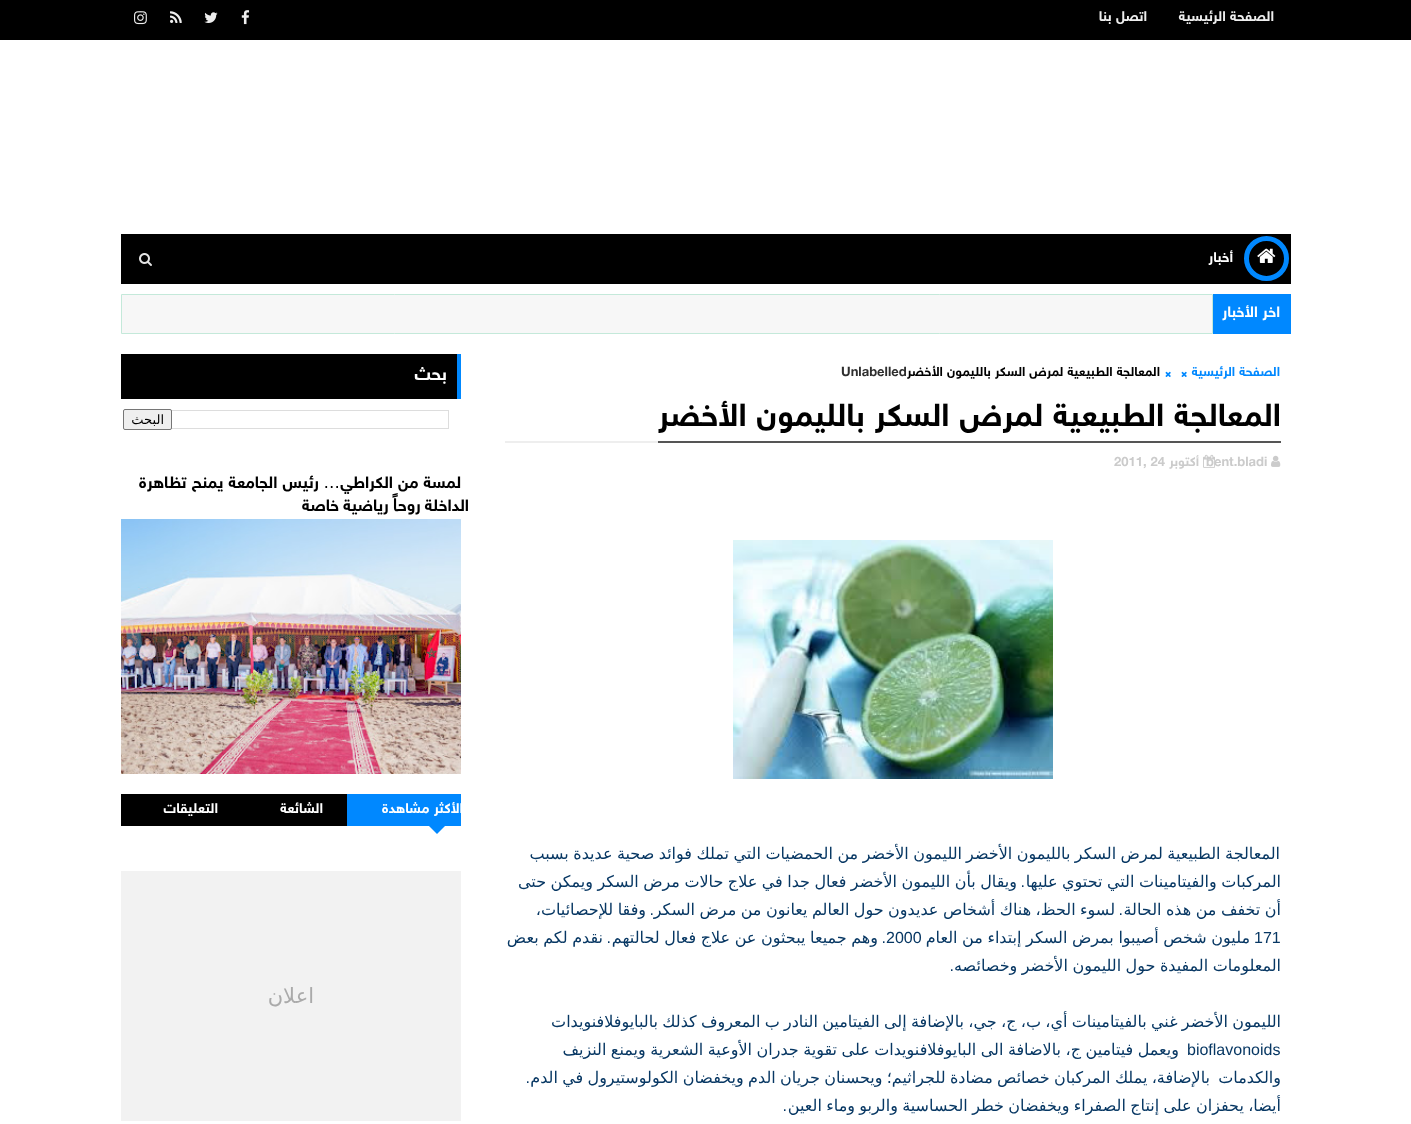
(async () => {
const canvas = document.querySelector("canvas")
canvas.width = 1411
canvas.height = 1124
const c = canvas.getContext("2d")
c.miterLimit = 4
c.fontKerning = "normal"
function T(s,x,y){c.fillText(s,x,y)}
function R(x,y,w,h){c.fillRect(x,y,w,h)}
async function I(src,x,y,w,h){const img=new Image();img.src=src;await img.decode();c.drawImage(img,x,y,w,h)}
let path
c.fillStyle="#fff"
R(0,0,1411,1124)
c.fillStyle="#000"
R(0,0,1411,40)
c.direction="rtl"
c.font="bold 14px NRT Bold"
c.fillStyle="#eee"
T("الصفحة الرئيسية",1274,21)
T("اتصل بنا",1147,21)
await I("1.png",241,10,9,15)
await I("2.png",204,12,14,11)
await I("3.png",170,11,12,12)
await I("4.png",134,11,13,14)
c.fillStyle="#000"
R(121,234,1170,50)
c.beginPath()
c.arc(1266.5,258.5,20,0,7)
c.strokeStyle="#08f"
c.lineWidth=5
c.stroke()
await I("5.png",1257,248,19,15)
c.letterSpacing="1px"
c.fillStyle="#fff"
T("أخبار",1233,262)
await I("6.png",139,253,13,13)
c.fillStyle="#08f"
R(1213,294,78,40)
c.letterSpacing="0px"
c.font="bold 15px NRT Bold"
c.fillStyle="#fff"
T("اخر الأخبار",1280,317)
c.fillStyle="#f7f7f7"
c.beginPath()
c.rect(121.5,294.5,1091,39)
c.fill()
c.strokeStyle="#c4e9da"
c.lineWidth=1
c.stroke()
c.font="bold 13px NRT Bold"
c.fillStyle="#08f"
T("الصفحة الرئيسية",1280,376)
await I("7.png",1181,371,6,6)
await I("7.png",1165,371,6,6)
c.fillStyle="#000"
T("المعالجة الطبيعية لمرض السكر بالليمون الأخضر",1160,376)
c.direction="ltr"
c.fillStyle="#2e2e2e"
T("Unlabelled",841,376)
c.fillStyle="#eee"
R(505,441,153,2)
c.fillStyle="#555"
R(658,441,623,2)
c.direction="rtl"
c.font="bold 32px NRT Bold"
c.fillStyle="#000"
T("المعالجة الطبيعية لمرض السكر بالليمون الأخضر",1281,426)
await I("8.png",1271,455,10,12)
c.direction="ltr"
c.font="bold 13px NRT Bold"
c.fillStyle="#cbcbcb"
T("bent.bladi",1206,466)
await I("9.png",1203,454,12,14)
c.direction="rtl"
T("أكتوبر",1199,466)
c.direction="ltr"
T("2011, 24",1114,466)
await I("10.png",733,540,320,239)
c.wordSpacing="-0.6px"
c.direction="rtl"
c.font="16px DejaVu Sans"
c.fillStyle="#073763"
T("المعالجة الطبيعية لمرض السكر بالليمون الأخضر",1280,859)
T("الليمون الأخضر من الحمضيات التي تملك فوائد صحية عديدة بسبب",962,859)
T("المركبات والفيتامينات التي تحتوي عليها",1281,887)
T("ويقال بأن الليمون الأخضر فعال جدا في علاج حالات مرض السكر ويمكن حتى",1017,887)
c.wordSpacing="0px"
c.font="16px Liberation Sans"
T(".",1025,887)
c.wordSpacing="-0.6px"
c.font="16px DejaVu Sans"
T("أن تخفف من هذه الحالة",1281,915)
c.wordSpacing="0px"
c.font="16px Liberation Sans"
T(".",1123,915)
c.wordSpacing="-0.6px"
c.font="16px DejaVu Sans"
T("لسوء الحظ، هناك أشخاص عديدون حول العالم يعانون من مرض السكر",1115,915)
c.wordSpacing="0px"
c.font="16px Liberation Sans"
T(".",654,915)
c.wordSpacing="-0.6px"
c.font="16px DejaVu Sans"
T("وفقا للإحصائيات،",646,915)
c.wordSpacing="0px"
c.direction="ltr"
c.font="16px Liberation Sans"
T("171",1254,943)
c.wordSpacing="-0.5px"
c.direction="rtl"
c.font="16px DejaVu Sans"
T("مليون شخص أصيبوا بمرض السكر إبتداء من العام",1250,943)
c.wordSpacing="0px"
c.direction="ltr"
c.font="16px Liberation Sans"
T("2000",886,943)
c.direction="rtl"
T(".",886,943)
c.wordSpacing="-0.5px"
c.font="16px DejaVu Sans"
T("وهم جميعا يبحثون عن علاج فعال لحالتهم",878,943)
c.wordSpacing="0px"
c.font="16px Liberation Sans"
T(".",611,943)
c.wordSpacing="-0.5px"
c.font="16px DejaVu Sans"
T("نقدم لكم بعض",603,943)
c.wordSpacing="-0.6px"
T("المعلومات المفيدة حول الليمون الأخضر وخصائصه",1281,971)
c.wordSpacing="0px"
c.font="16px Liberation Sans"
T(".",954,971)
c.wordSpacing="-0.8px"
c.font="16px DejaVu Sans"
T("الليمون الأخضر غني بالفيتامينات أي، ب، ج، جي، بالإضافة إلى الفيتامين النادر ب المعروف كذلك بالبايوفلافنويدات",1281,1027)
c.wordSpacing="0px"
c.direction="ltr"
c.font="16px Liberation Sans"
T("bioflavonoids",1187,1055)
c.wordSpacing="-0.6px"
c.direction="rtl"
c.font="16px DejaVu Sans"
T("ويعمل فيتامين ج، بالاضافة الى البايوفلافنويدات على تقوية جدران الأوعية الشعرية ويمنع النزيف",1179,1055)
c.wordSpacing="0px"
T("والكدمات",1281,1083)
c.wordSpacing="-0.75px"
T("بالإضافة، يملك المركبان خصائص مضادة للجراثيم؛ ويحسنان جريان الدم ويخفضان الكولوستيرول في الدم",1210,1083)
c.wordSpacing="0px"
c.font="16px Liberation Sans"
T(".",530,1083)
c.wordSpacing="-0.75px"
c.font="16px DejaVu Sans"
T("أيضا، يحفزان على إنتاج الصفراء ويخفضان خطر الحساسية والربو وماء العين",1281,1111)
c.wordSpacing="0px"
c.font="16px Liberation Sans"
T(".",787,1111)
c.fillStyle="#000"
R(121,354,336,45)
c.fillStyle="#08f"
R(457,354,4,45)
c.font="bold 18px NRT Bold"
c.fillStyle="#fff"
T("بحث",447,380)
c.strokeStyle="#ddd"
c.strokeRect(161.5,410.5,287,18)
c.fillStyle="#efefef"
c.beginPath()
c.roundRect(123.5,409.5,48,20,1.5)
c.fill()
c.strokeStyle="#767676"
c.stroke()
c.font="13px DejaVu Sans"
c.fillStyle="#000"
T("البحث",164,424)
c.font="bold 16.4px NRT Bold"
T("لمسة من الكراطي",461,488)
c.font="16.4px DejaVu Sans"
T("…",340,488)
c.font="bold 16.4px NRT Bold"
T("رئيس الجامعة يمنح تظاهرة",319,488)
c.wordSpacing="-1px"
T("الداخلة روحاً رياضية خاصة",469,511)
await I("11.png",121,519,340,255)
c.fillStyle="#08f"
R(347,794,114,32)
c.letterSpacing="1.5px"
c.font="bold 14px NRT Bold"
c.fillStyle="#fff"
T("الأكثر مشاهدة",463,813)
c.fillStyle="#08f"
path = new Path2D("M427 824h20l-10 10z")
c.fill(path)
c.fillStyle="#000"
R(121,794,226,32)
c.wordSpacing="0px"
c.fillStyle="#fff"
T("الشائعة",323,813)
T("التعليقات",218,813)
c.fillStyle="#f2f2f2"
R(121,871,340,250)
c.letterSpacing="0px"
c.font="21px DejaVu Sans"
c.fillStyle="#aaa"
T("اعلان",314,1003)
})()
